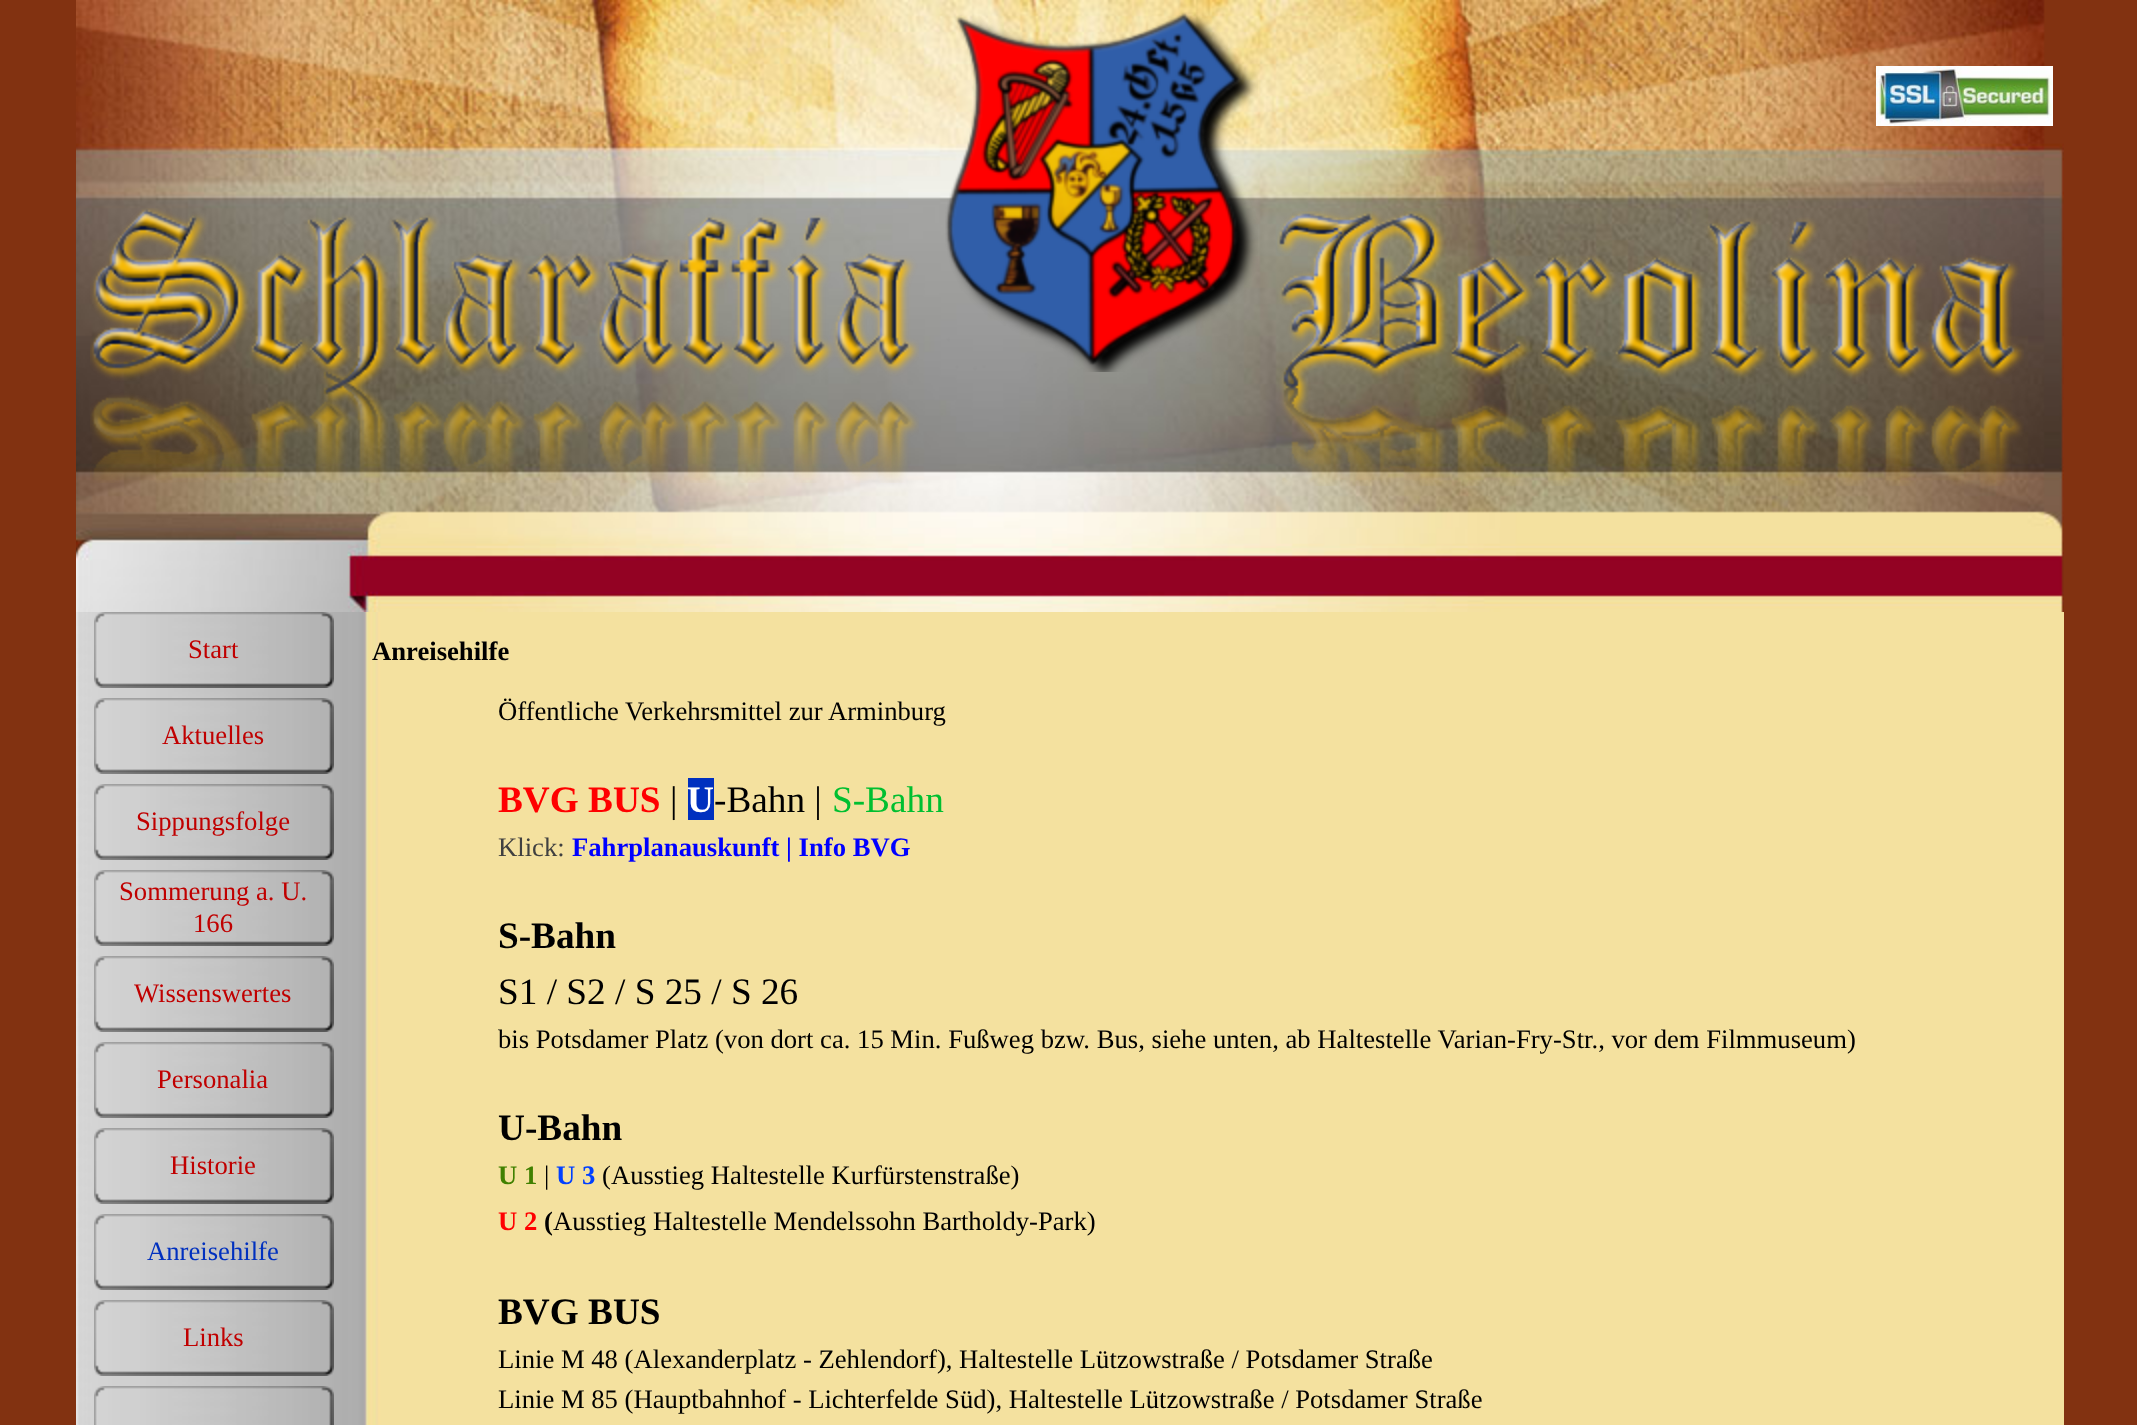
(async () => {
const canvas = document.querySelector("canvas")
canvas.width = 2137
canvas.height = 1425
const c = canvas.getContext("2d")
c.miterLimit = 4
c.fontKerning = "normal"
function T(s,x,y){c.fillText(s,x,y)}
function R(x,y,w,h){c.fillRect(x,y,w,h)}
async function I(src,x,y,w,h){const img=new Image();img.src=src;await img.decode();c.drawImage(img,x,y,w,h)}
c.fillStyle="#823211"
R(0,0,2137,1425)
await I("1.png",76,0,1988,612)
await I("2.png",945,12,313,360)
await I("3.png",1876,66,177,60)
await I("4.png",90,208,829,275)
await I("5.png",1277,211,747,275)
await I("6.png",76,612,250,813)
await I("15.png",326,612,1738,813)
await I("7.png",94,612,240,76)
c.font="26.67px Liberation Serif"
c.fillStyle="#c00000"
T("Start",188,658)
await I("8.png",94,698,240,76)
T("Aktuelles",162,744)
await I("9.png",94,784,240,76)
T("Sippungsfolge",136,830)
await I("10.png",94,870,240,76)
T("Sommerung a. U.",119,900)
T("166",193,932)
await I("11.png",94,956,240,76)
T("Wissenswertes",134,1002)
await I("12.png",94,1042,240,76)
T("Personalia",157,1088)
await I("13.png",94,1128,240,76)
T("Historie",170,1174)
await I("7.png",94,1214,240,76)
c.fillStyle="#0030bf"
T("Anreisehilfe",147,1260)
await I("8.png",94,1300,240,76)
c.fillStyle="#c00000"
T("Links",183,1346)
await I("14.png",94,1386,240,39)
c.font="bold 26.67px Liberation Serif"
c.fillStyle="#000"
T("Anreisehilfe",372,660)
c.font="26.67px Liberation Serif"
T("Öffentliche Verkehrsmittel zur Arminburg",498,720)
c.font="bold 37.25px Liberation Serif"
c.fillStyle="#f00"
T("BVG BUS",498,812)
c.font="37.25px Liberation Serif"
c.fillStyle="#000"
T("|",670,812)
c.fillStyle="#0030bf"
R(688,778,26,42)
c.font="bold 37.25px Liberation Serif"
c.fillStyle="#fff"
T("U",687,812)
c.font="37.25px Liberation Serif"
c.fillStyle="#000"
T("-Bahn |",714,812)
c.fillStyle="#00bf30"
T("S-Bahn",832,812)
c.font="26.67px Liberation Serif"
c.fillStyle="#404040"
T("Klick:",498,856)
c.font="bold 26.67px Liberation Serif"
c.fillStyle="#00f"
T("Fahrplanauskunft | Info BVG",572,856)
c.font="bold 37.25px Liberation Serif"
c.fillStyle="#000"
T("S-Bahn",498,948)
c.font="37.25px Liberation Serif"
T("S1 / S2 / S 25 / S 26",498,1004)
c.font="26.67px Liberation Serif"
T("bis Potsdamer Platz (von dort ca. 15 Min. Fußweg bzw. Bus, siehe unten, ab Haltestelle Varian-Fry-Str., vor dem Filmmuseum)",498,1048)
c.font="bold 37.25px Liberation Serif"
T("U-Bahn",498,1140)
c.font="bold 26.67px Liberation Serif"
c.fillStyle="#408000"
T("U 1",498,1184)
c.font="26.67px Liberation Serif"
c.fillStyle="#000"
T("|",544,1184)
c.font="bold 26.67px Liberation Serif"
c.fillStyle="#0040ff"
T("U 3",556,1184)
c.font="26.67px Liberation Serif"
c.fillStyle="#000"
T("(Ausstieg Haltestelle Kurfürstenstraße)",602,1184)
c.font="bold 26.67px Liberation Serif"
c.fillStyle="#f00"
T("U 2",498,1230)
c.fillStyle="#000"
T("(",544,1230)
c.font="26.67px Liberation Serif"
T("Ausstieg Haltestelle Mendelssohn Bartholdy-Park)",553,1230)
c.font="bold 37.25px Liberation Serif"
T("BVG BUS",498,1324)
c.font="26.67px Liberation Serif"
T("Linie M 48 (Alexanderplatz - Zehlendorf), Haltestelle Lützowstraße / Potsdamer Straße",498,1368)
T("Linie M 85 (Hauptbahnhof - Lichterfelde Süd), Haltestelle Lützowstraße / Potsdamer Straße",498,1408)
})()
